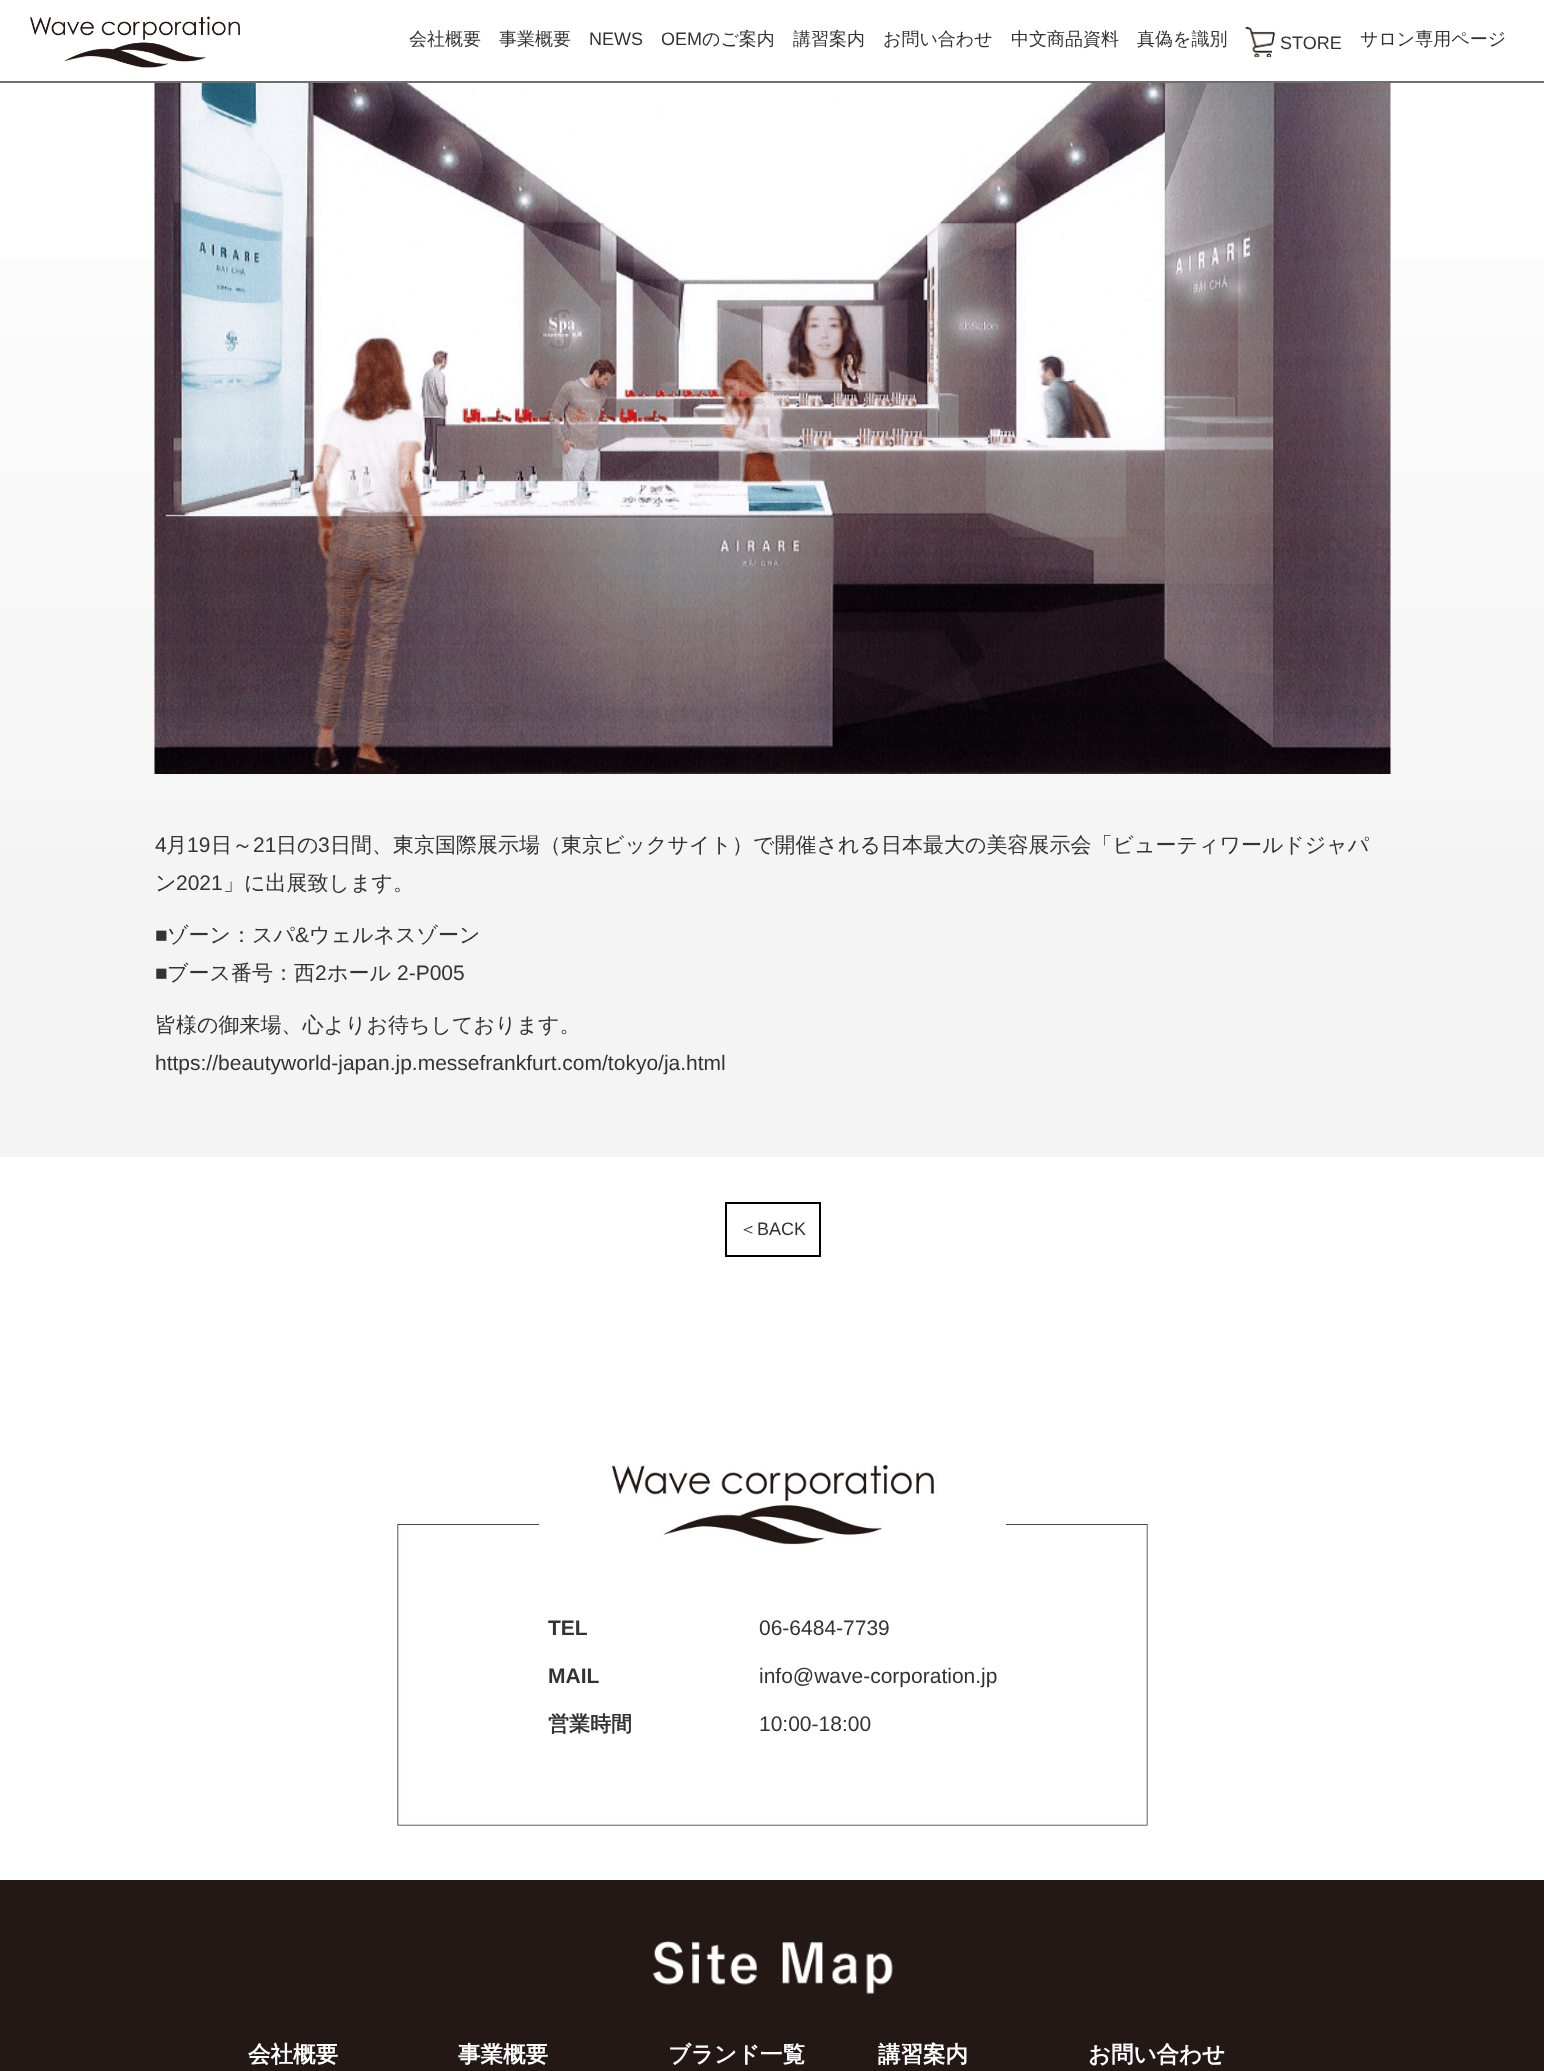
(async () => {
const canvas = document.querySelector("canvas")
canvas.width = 1544
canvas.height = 2071
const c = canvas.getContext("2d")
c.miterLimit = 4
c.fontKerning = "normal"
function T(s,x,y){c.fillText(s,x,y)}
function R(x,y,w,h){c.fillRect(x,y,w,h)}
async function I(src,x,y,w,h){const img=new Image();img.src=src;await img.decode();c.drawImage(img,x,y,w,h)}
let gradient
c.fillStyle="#fff"
R(0,0,1544,2071)
await I("1.png",30,16,210,52)
c.fillStyle="#6e6e6e"
R(0,81,1544,2)
c.font="500 18px WenQuanYi Zen Hei"
c.fillStyle="#333"
T("会社概要",409,45)
T("事業概要",499,45)
c.font="18px Liberation Sans"
T("NEWS",589,45)
T("OEM",661,45)
c.font="500 18px WenQuanYi Zen Hei"
T("のご案内",702,45)
T("講習案内",793,45)
T("お問い合わせ",883,45)
T("中文商品資料",1011,45)
T("真偽を識別",1137,45)
await I("2.png",1245,27,31,31)
c.font="18px Liberation Sans"
T("STORE",1280,49)
c.font="500 18px WenQuanYi Zen Hei"
T("サロン専用ページ",1360,45)
gradient = c.createLinearGradient(773,-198,773,1157)
gradient.addColorStop(.2,"#fff")
gradient.addColorStop(.8,"#f4f4f4")
c.fillStyle = gradient
R(0,258,1544,899)
c.fillStyle="#fff"
R(1390,258,1,516)
await I("3.png",154,83,1237,691)
c.font="21px Liberation Sans"
c.fillStyle="#333"
T("4",155,852)
c.font="500 21px WenQuanYi Zen Hei"
T("月",166,852)
c.font="21px Liberation Sans"
T("19",187,852)
c.font="500 21px WenQuanYi Zen Hei"
T("日～",211,852)
c.font="21px Liberation Sans"
T("21",253,852)
c.font="500 21px WenQuanYi Zen Hei"
T("日の",276,852)
c.font="21px Liberation Sans"
T("3",318,852)
c.font="500 21px WenQuanYi Zen Hei"
T("日間、東京国際展示場（東京ビックサイト）で開催される日本最大の美容展示会「ビューティワールドジャパ",330,852)
T("ン",155,890)
c.font="21px Liberation Sans"
T("2021",176,890)
c.font="500 21px WenQuanYi Zen Hei"
T("」に出展致します。",223,890)
c.font="21px Liberation Sans"
T("■",155,942)
c.font="500 21px WenQuanYi Zen Hei"
T("ゾーン：スパ",167,942)
c.font="21px Liberation Sans"
T("&",295,942)
c.font="500 21px WenQuanYi Zen Hei"
T("ウェルネスゾーン",309,942)
c.font="21px Liberation Sans"
T("■",155,980)
c.font="500 21px WenQuanYi Zen Hei"
T("ブース番号：西",167,980)
c.font="21px Liberation Sans"
T("2",315,980)
c.font="500 21px WenQuanYi Zen Hei"
T("ホール",327,980)
c.font="21px Liberation Sans"
T("2-P005",397,980)
c.font="500 21px WenQuanYi Zen Hei"
T("皆様の御来場、心よりお待ちしております。",155,1032)
c.font="21px Liberation Sans"
T("https://beautyworld-japan.jp.messefrankfurt.com/tokyo/ja.html",155,1070)
c.strokeStyle="#030000"
c.lineWidth=2
c.strokeRect(726,1203,94,53)
c.font="500 18px WenQuanYi Zen Hei"
T("＜",739,1235)
c.font="18px Liberation Sans"
T("BACK",757,1235)
await I("4.png",397,1465,751,361)
c.font="bold 21px Liberation Sans"
T("TEL",548,1635)
T("MAIL",548,1683)
c.font="bold 21px WenQuanYi Zen Hei"
T("営業時間",548,1731)
c.font="21px Liberation Sans"
T("06-6484-7739",759,1635)
T("info@wave-corporation.jp",759,1683)
T("10:00-18:00",759,1731)
c.fillStyle="#231815"
R(0,1880,1544,191)
await I("5.png",652,1941,241,53)
c.font="bold 22.5px WenQuanYi Zen Hei"
c.fillStyle="#fff"
T("会社概要",248,2062)
T("事業概要",458,2062)
T("ブランド一覧",668,2062)
T("講習案内",878,2062)
T("お問い合わせ",1088,2062)
})()
